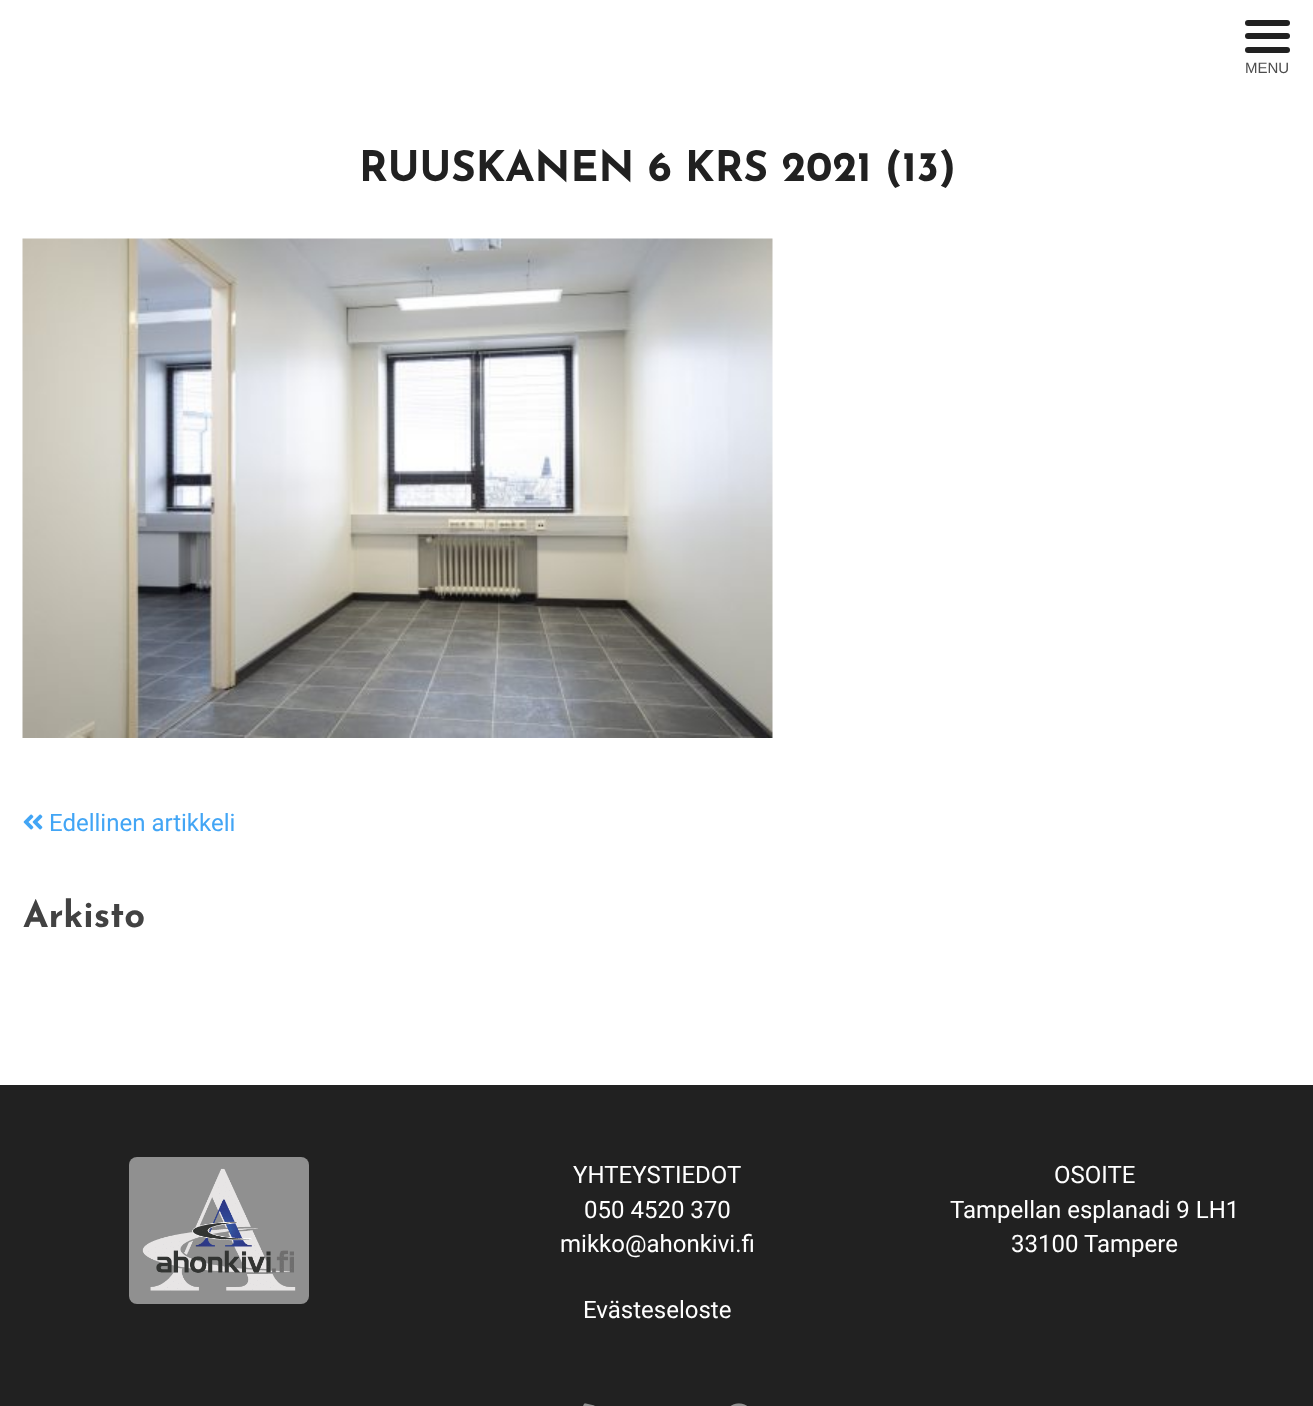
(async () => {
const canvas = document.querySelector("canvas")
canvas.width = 1313
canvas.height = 1406
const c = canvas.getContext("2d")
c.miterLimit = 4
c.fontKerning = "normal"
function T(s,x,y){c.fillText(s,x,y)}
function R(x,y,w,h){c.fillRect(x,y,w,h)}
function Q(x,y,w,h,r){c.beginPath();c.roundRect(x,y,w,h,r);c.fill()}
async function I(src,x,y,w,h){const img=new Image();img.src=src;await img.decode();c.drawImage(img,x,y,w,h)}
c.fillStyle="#fff"
R(0,0,1313,1406)
c.fillStyle="#212121"
Q(1245,20,45,6,3)
Q(1245,33,45,6,3)
Q(1245,47,45,6,3)
c.font="15px Liberation Sans"
c.fillStyle="#4d4d4d"
T("MENU",1245,73)
c.font="bold 42px Josefin Sans"
c.fillStyle="#212121"
T("RUUSKANEN 6 KRS 2021 (13)",359,181)
await I("1.png",22,238,751,500)
await I("2.png",23,814,20,16)
c.font="24px Roboto"
c.fillStyle="#42a5f5"
T("Edellinen artikkeli",49,831)
c.font="bold 36.5px Josefin Sans"
c.fillStyle="#424242"
T("Arkisto",23,927)
c.fillStyle="#212121"
R(0,1085,1313,321)
c.fillStyle="#909090"
Q(129,1157,180,147,8)
await I("3.png",142,1168,154,123)
c.font="24px Roboto"
c.fillStyle="#fff"
T("YHTEYSTIEDOT",573,1183)
T("050 4520 370",584,1218)
T("mikko@ahonkivi.fi",560,1252)
T("Evästeseloste",583,1318)
T("OSOITE",1054,1183)
T("Tampellan esplanadi 9 LH1",950,1218)
T("33100 Tampere",1011,1252)
await I("4.png",583,1403,12,3)
await I("5.png",730,1403,17,3)
})()
